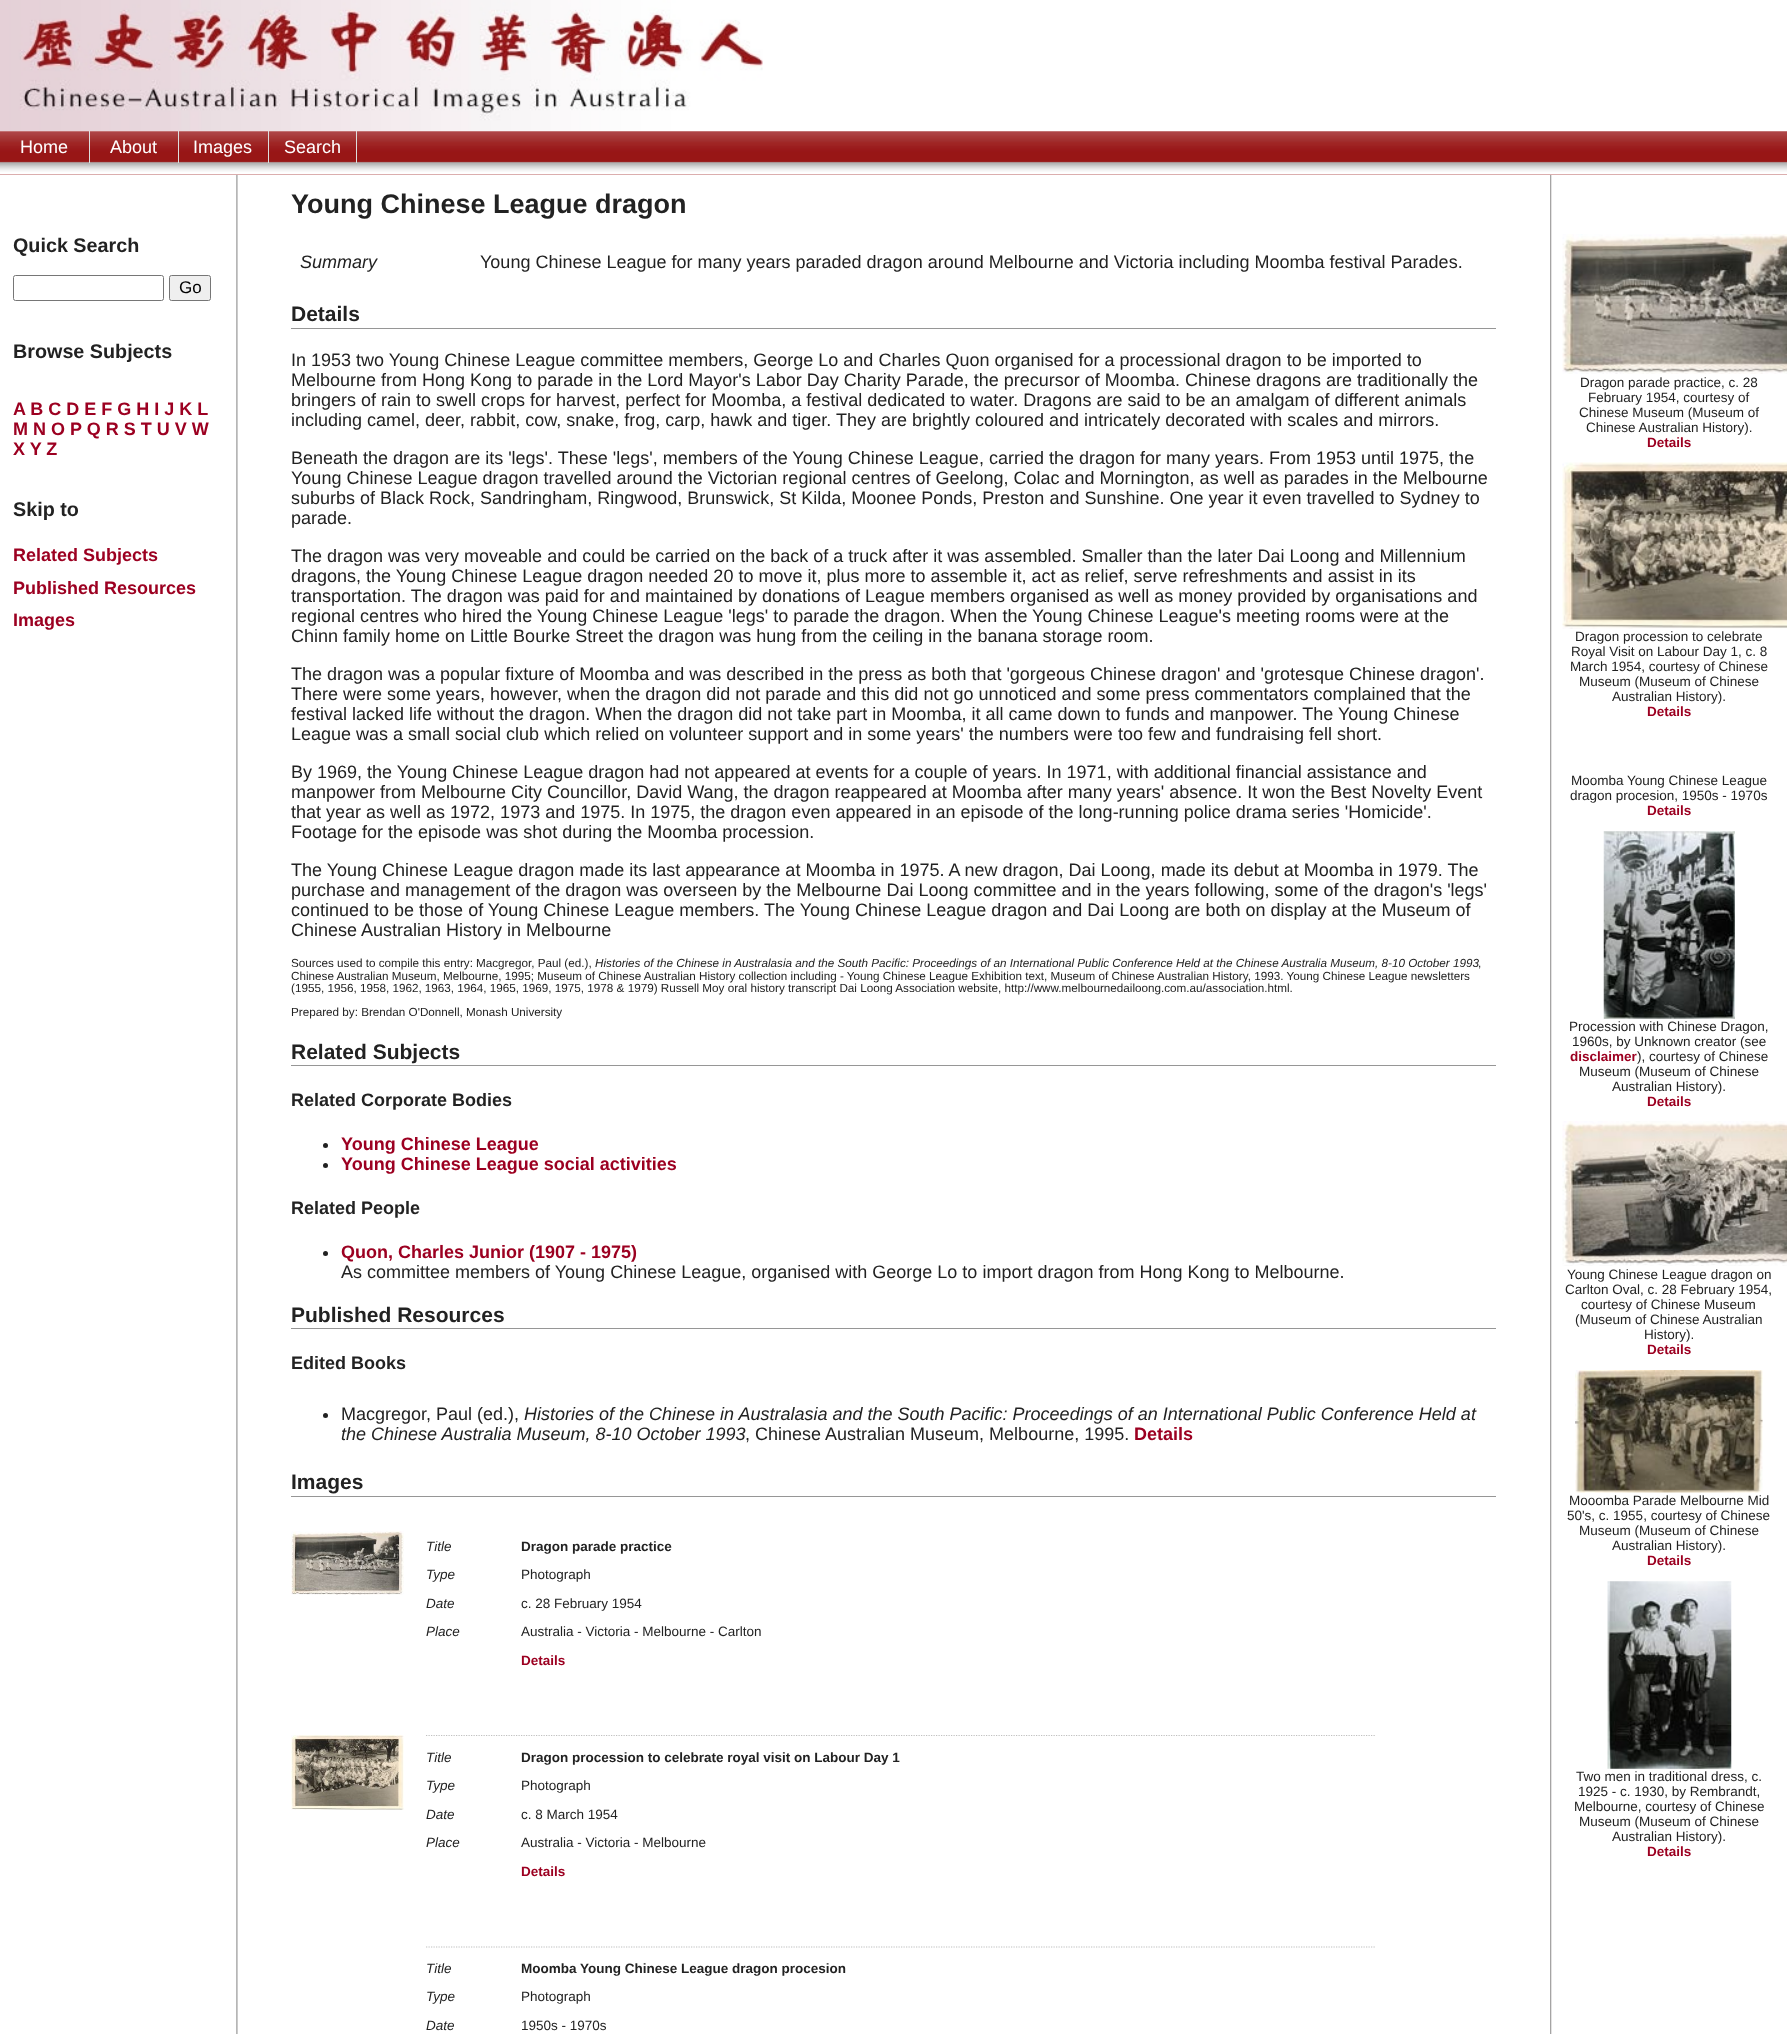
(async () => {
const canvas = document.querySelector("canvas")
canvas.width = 1787
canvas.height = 2034
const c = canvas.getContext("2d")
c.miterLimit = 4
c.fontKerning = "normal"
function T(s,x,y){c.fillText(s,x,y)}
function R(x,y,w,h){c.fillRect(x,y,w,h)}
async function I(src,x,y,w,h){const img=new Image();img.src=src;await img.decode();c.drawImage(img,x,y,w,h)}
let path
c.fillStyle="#fff"
R(0,0,1787,2034)
await I("1.png",0,0,763,132)
await I("2.png",0,131,1787,44)
c.fillStyle="#ddd"
R(89,131,1,32)
c.font="18px Liberation Sans"
c.fillStyle="#fff"
T("Home",20,153)
c.fillStyle="#ddd"
R(178,131,1,32)
c.fillStyle="#fff"
T("About",110,153)
c.fillStyle="#ddd"
R(268,131,1,32)
c.fillStyle="#fff"
T("Images",193,153)
c.fillStyle="#ddd"
R(356,131,1,32)
c.fillStyle="#fff"
T("Search",284,153)
await I("3.png",236,175,2,1859)
await I("4.png",1550,175,2,1859)
c.font="bold 27px Liberation Sans"
c.fillStyle="#222"
T("Young Chinese League dragon",291,213)
c.font="bold 19.75px Liberation Sans"
T("Quick Search",13,252)
c.beginPath()
c.roundRect(13.5,275.5,150,25,2)
c.strokeStyle="#767676"
c.stroke()
c.fillStyle="#efefef"
c.beginPath()
c.roundRect(169.5,275.5,41,25,2)
c.fill()
c.stroke()
c.font="17px Liberation Sans"
c.fillStyle="#000"
T("Go",179,293)
c.font="bold 19.75px Liberation Sans"
c.fillStyle="#222"
T("Browse Subjects",13,358)
c.font="bold 18px Liberation Sans"
c.fillStyle="#9c0021"
T("A B C D E F G H I J K L",13,415)
T("M N O P Q R S T U V W",13,435)
T("X Y Z",13,455)
c.font="bold 19.75px Liberation Sans"
c.fillStyle="#222"
T("Skip to",13,516)
c.font="bold 18px Liberation Sans"
c.fillStyle="#9c0021"
T("Related Subjects",13,561)
T("Published Resources",13,594)
T("Images",13,626)
c.font="italic 18px Liberation Sans"
c.fillStyle="#222"
T("Summary",300,268)
c.font="18px Liberation Sans"
T("Young Chinese League for many years paraded dragon around Melbourne and Victoria including Moomba festival Parades.",480,268)
c.fillStyle="#969696"
R(291,328,1205,1)
c.font="bold 21px Liberation Sans"
c.fillStyle="#222"
T("Details",291,321)
c.font="18px Liberation Sans"
T("In 1953 two Young Chinese League committee members, George Lo and Charles Quon organised for a processional dragon to be imported to",291,366)
T("Melbourne from Hong Kong to parade in the Lord Mayor's Labor Day Charity Parade, the precursor of Moomba. Chinese dragons are traditionally the",291,386)
T("bringers of rain to swell crops for harvest, perfect for Moomba, a festival dedicated to water. Dragons are said to be an amalgam of different animals",291,406)
T("including camel, deer, rabbit, cow, snake, frog, carp, hawk and tiger. They are brightly coloured and intricately decorated with scales and mirrors.",291,426)
T("Beneath the dragon are its 'legs'. These 'legs', members of the Young Chinese League, carried the dragon for many years. From 1953 until 1975, the",291,464)
T("Young Chinese League dragon travelled around the Victorian regional centres of Geelong, Colac and Mornington, as well as parades in the Melbourne",291,484)
T("suburbs of Black Rock, Sandringham, Ringwood, Brunswick, St Kilda, Moonee Ponds, Preston and Sunshine. One year it even travelled to Sydney to",291,504)
T("parade.",291,524)
T("The dragon was very moveable and could be carried on the back of a truck after it was assembled. Smaller than the later Dai Loong and Millennium",291,562)
T("dragons, the Young Chinese League dragon needed 20 to move it, plus more to assemble it, act as relief, serve refreshments and assist in its",291,582)
T("transportation. The dragon was paid for and maintained by donations of League members organised as well as money provided by organisations and",291,602)
T("regional centres who hired the Young Chinese League 'legs' to parade the dragon. When the Young Chinese League's meeting rooms were at the",291,622)
T("Chinn family home on Little Bourke Street the dragon was hung from the ceiling in the banana storage room.",291,642)
T("The dragon was a popular fixture of Moomba and was described in the press as both that 'gorgeous Chinese dragon' and 'grotesque Chinese dragon'.",291,680)
T("There were some years, however, when the dragon did not parade and this did not go unnoticed and some press commentators complained that the",291,700)
T("festival lacked life without the dragon. When the dragon did not take part in Moomba, it all came down to funds and manpower. The Young Chinese",291,720)
T("League was a small social club which relied on volunteer support and in some years' the numbers were too few and fundraising fell short.",291,740)
T("By 1969, the Young Chinese League dragon had not appeared at events for a couple of years. In 1971, with additional financial assistance and",291,778)
T("manpower from Melbourne City Councillor, David Wang, the dragon reappeared at Moomba after many years' absence. It won the Best Novelty Event",291,798)
T("that year as well as 1972, 1973 and 1975. In 1975, the dragon even appeared in an episode of the long-running police drama series 'Homicide'.",291,818)
T("Footage for the episode was shot during the Moomba procession.",291,838)
T("The Young Chinese League dragon made its last appearance at Moomba in 1975. A new dragon, Dai Loong, made its debut at Moomba in 1979. The",291,876)
T("purchase and management of the dragon was overseen by the Melbourne Dai Loong committee and in the years following, some of the dragon's 'legs'",291,896)
T("continued to be those of Young Chinese League members. The Young Chinese League dragon and Dai Loong are both on display at the Museum of",291,916)
T("Chinese Australian History in Melbourne",291,936)
c.font="11.7px Liberation Sans"
T("Sources used to compile this entry:",291,967)
T("Macgregor, Paul (ed.),",476,967)
c.font="italic 11.7px Liberation Sans"
T("Histories of the Chinese in Australasia and the South Pacific: Proceedings of an International Public Conference Held at the Chinese Australia Museum, 8-10 October 1993",595,967)
c.font="11.7px Liberation Sans"
T(",",1478,967)
T("Chinese Australian Museum, Melbourne, 1995; Museum of Chinese Australian History collection including - Young Chinese League Exhibition text, Museum of Chinese Australian History, 1993. Young Chinese League newsletters",291,980)
T("(1955, 1956, 1958, 1962, 1963, 1964, 1965, 1969, 1975, 1978 & 1979) Russell Moy oral history transcript Dai Loong Association website, http://www.melbournedailoong.com.au/association.html.",291,992)
T("Prepared by: Brendan O'Donnell, Monash University",291,1016)
c.fillStyle="#969696"
R(291,1065,1205,1)
c.font="bold 21px Liberation Sans"
c.fillStyle="#222"
T("Related Subjects",291,1059)
c.font="bold 18px Liberation Sans"
T("Related Corporate Bodies",291,1106)
c.beginPath()
c.arc(325.5,1145.5,2.5,0,7)
c.fill()
c.fillStyle="#9c0021"
T("Young Chinese League",341,1150)
c.fillStyle="#222"
c.beginPath()
c.arc(325.5,1165.5,2.5,0,7)
c.fill()
c.fillStyle="#9c0021"
T("Young Chinese League social activities",341,1170)
c.fillStyle="#222"
T("Related People",291,1214)
c.beginPath()
c.arc(325.5,1253.5,2.5,0,7)
c.fill()
c.fillStyle="#9c0021"
T("Quon, Charles Junior (1907 - 1975)",341,1258)
c.font="18px Liberation Sans"
c.fillStyle="#222"
T("As committee members of Young Chinese League, organised with George Lo to import dragon from Hong Kong to Melbourne.",341,1278)
c.fillStyle="#969696"
R(291,1328,1205,1)
c.font="bold 21px Liberation Sans"
c.fillStyle="#222"
T("Published Resources",291,1322)
c.font="bold 18px Liberation Sans"
T("Edited Books",291,1369)
c.beginPath()
c.arc(325.5,1415.5,2.5,0,7)
c.fill()
c.font="18px Liberation Sans"
T("Macgregor, Paul (ed.),",341,1420)
c.font="italic 18px Liberation Sans"
T("Histories of the Chinese in Australasia and the South Pacific: Proceedings of an International Public Conference Held at",524,1420)
T("the Chinese Australia Museum, 8-10 October 1993",341,1440)
c.font="18px Liberation Sans"
T(", Chinese Australian Museum, Melbourne, 1995.",745,1440)
c.font="bold 18px Liberation Sans"
c.fillStyle="#9c0021"
T("Details",1134,1440)
c.fillStyle="#969696"
R(291,1496,1205,1)
c.font="bold 21px Liberation Sans"
c.fillStyle="#222"
T("Images",291,1489)
await I("5.png",291,1531,113,64)
c.font="italic 13.5px Liberation Sans"
T("Title",426,1551)
c.font="bold 13.5px Liberation Sans"
T("Dragon parade practice",521,1551)
c.font="italic 13.5px Liberation Sans"
T("Type",426,1579)
c.font="13.5px Liberation Sans"
T("Photograph",521,1579)
c.font="italic 13.5px Liberation Sans"
T("Date",426,1608)
c.font="13.5px Liberation Sans"
T("c. 28 February 1954",521,1608)
c.font="italic 13.5px Liberation Sans"
T("Place",426,1636)
c.font="13.5px Liberation Sans"
T("Australia - Victoria - Melbourne - Carlton",521,1636)
c.font="bold 13.5px Liberation Sans"
c.fillStyle="#9c0021"
T("Details",521,1665)
await I("6.png",291,1735,113,75)
path = new Path2D("M426 1735.5h950")
c.strokeStyle="#c0c0c0"
c.lineWidth=1.2
c.setLineDash([1.25,1.25])
c.stroke(path)
c.font="italic 13.5px Liberation Sans"
c.fillStyle="#222"
T("Title",426,1762)
c.font="bold 13.5px Liberation Sans"
T("Dragon procession to celebrate royal visit on Labour Day 1",521,1762)
c.font="italic 13.5px Liberation Sans"
T("Type",426,1790)
c.font="13.5px Liberation Sans"
T("Photograph",521,1790)
c.font="italic 13.5px Liberation Sans"
T("Date",426,1819)
c.font="13.5px Liberation Sans"
T("c. 8 March 1954",521,1819)
c.font="italic 13.5px Liberation Sans"
T("Place",426,1847)
c.font="13.5px Liberation Sans"
T("Australia - Victoria - Melbourne",521,1847)
c.font="bold 13.5px Liberation Sans"
c.fillStyle="#9c0021"
T("Details",521,1876)
path = new Path2D("M426 1947h950")
c.stroke(path)
c.font="italic 13.5px Liberation Sans"
c.fillStyle="#222"
T("Title",426,1973)
c.font="bold 13.5px Liberation Sans"
T("Moomba Young Chinese League dragon procesion",521,1973)
c.font="italic 13.5px Liberation Sans"
T("Type",426,2001)
c.font="13.5px Liberation Sans"
T("Photograph",521,2001)
c.font="italic 13.5px Liberation Sans"
T("Date",426,2030)
c.font="13.5px Liberation Sans"
T("1950s - 1970s",521,2030)
await I("7.png",1562,234,225,140)
T("Dragon parade practice, c. 28",1580,387)
T("February 1954, courtesy of",1588,402)
T("Chinese Museum (Museum of",1579,417)
T("Chinese Australian History).",1586,432)
c.font="bold 13.5px Liberation Sans"
c.fillStyle="#9c0021"
T("Details",1647,447)
await I("8.png",1562,462,225,167)
c.font="13.5px Liberation Sans"
c.fillStyle="#222"
T("Dragon procession to celebrate",1575,641)
T("Royal Visit on Labour Day 1, c. 8",1571,656)
T("March 1954, courtesy of Chinese",1570,671)
T("Museum (Museum of Chinese",1579,686)
T("Australian History).",1612,701)
c.font="bold 13.5px Liberation Sans"
c.fillStyle="#9c0021"
T("Details",1647,716)
c.font="13.5px Liberation Sans"
c.fillStyle="#222"
T("Moomba Young Chinese League",1571,785)
T("dragon procesion, 1950s - 1970s",1570,800)
c.font="bold 13.5px Liberation Sans"
c.fillStyle="#9c0021"
T("Details",1647,815)
await I("9.png",1603,831,132,188)
c.font="13.5px Liberation Sans"
c.fillStyle="#222"
T("Procession with Chinese Dragon,",1569,1031)
T("1960s, by Unknown creator (see",1572,1046)
c.font="bold 13.5px Liberation Sans"
c.fillStyle="#9c0021"
T("disclaimer",1570,1061)
c.font="13.5px Liberation Sans"
c.fillStyle="#222"
T("), courtesy of Chinese",1637,1061)
T("Museum (Museum of Chinese",1579,1076)
T("Australian History).",1612,1091)
c.font="bold 13.5px Liberation Sans"
c.fillStyle="#9c0021"
T("Details",1647,1106)
await I("10.png",1562,1121,225,145)
c.font="13.5px Liberation Sans"
c.fillStyle="#222"
T("Young Chinese League dragon on",1567,1279)
T("Carlton Oval, c. 28 February 1954,",1565,1294)
T("courtesy of Chinese Museum",1581,1309)
T("(Museum of Chinese Australian",1575,1324)
T("History).",1644,1339)
c.font="bold 13.5px Liberation Sans"
c.fillStyle="#9c0021"
T("Details",1647,1354)
await I("11.png",1575,1370,188,123)
c.font="13.5px Liberation Sans"
c.fillStyle="#222"
T("Mooomba Parade Melbourne Mid",1569,1505)
T("50's, c. 1955, courtesy of Chinese",1567,1520)
T("Museum (Museum of Chinese",1579,1535)
T("Australian History).",1612,1550)
c.font="bold 13.5px Liberation Sans"
c.fillStyle="#9c0021"
T("Details",1647,1565)
await I("12.png",1607,1581,125,188)
c.font="13.5px Liberation Sans"
c.fillStyle="#222"
T("Two men in traditional dress, c.",1576,1781)
T("1925 - c. 1930, by Rembrandt,",1578,1796)
T("Melbourne, courtesy of Chinese",1574,1811)
T("Museum (Museum of Chinese",1579,1826)
T("Australian History).",1612,1841)
c.font="bold 13.5px Liberation Sans"
c.fillStyle="#9c0021"
T("Details",1647,1856)
})()
